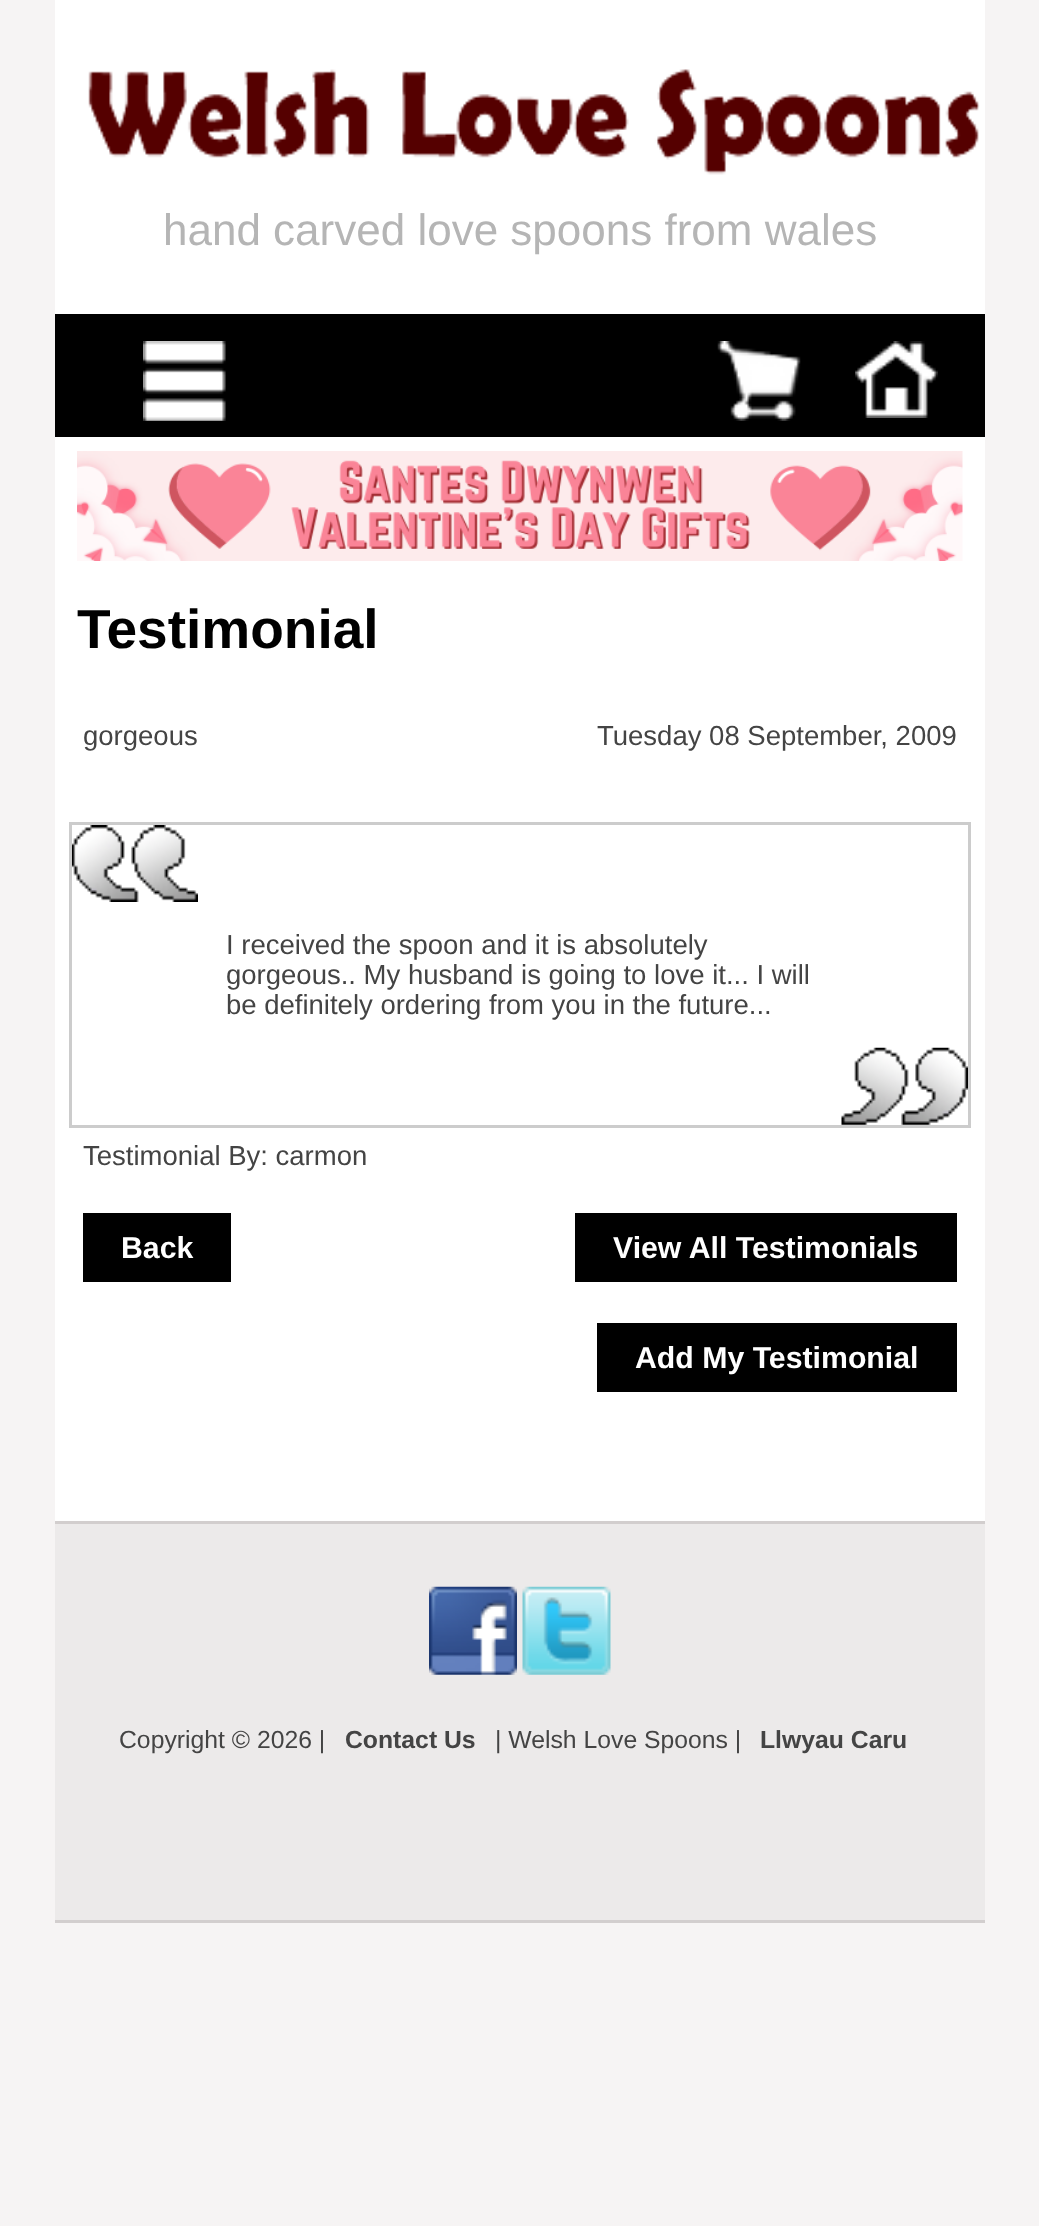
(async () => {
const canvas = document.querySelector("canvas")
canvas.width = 1039
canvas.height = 2226
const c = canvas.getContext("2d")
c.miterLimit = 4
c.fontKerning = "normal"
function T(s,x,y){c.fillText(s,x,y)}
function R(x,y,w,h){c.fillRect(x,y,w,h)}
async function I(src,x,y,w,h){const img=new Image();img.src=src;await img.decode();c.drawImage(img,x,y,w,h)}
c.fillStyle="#f6f4f4"
R(0,0,1039,2226)
c.fillStyle="#fff"
R(55,0,930,1521)
await I("1.png",88,69,892,106)
c.font="44px Liberation Sans"
c.fillStyle="#b5b5b5"
T("hand carved love spoons from wales",163,245)
c.fillStyle="#000"
R(55,314,930,123)
await I("2.png",143,341,83,80)
await I("3.png",717,341,84,80)
await I("4.png",855,341,83,77)
await I("5.png",77,451,886,110)
c.font="bold 55px Liberation Sans"
T("Testimonial",77,648)
c.font="27.5px Liberation Sans"
c.fillStyle="#444"
T("gorgeous",83,745)
T("Tuesday 08 September, 2009",597,745)
await I("6.png",72,825,126,77)
c.strokeStyle="#ccc"
c.lineWidth=3
c.strokeRect(70.5,823.5,899,303)
await I("7.png",841,1047,127,78)
T("I received the spoon and it is absolutely",226,954)
T("gorgeous.. My husband is going to love it... I will",226,984)
T("be definitely ordering from you in the future...",226,1014)
T("Testimonial By: carmon",83,1165)
c.fillStyle="#000"
R(83,1213,148,69)
c.font="bold 30.25px Liberation Sans"
c.fillStyle="#fff"
T("Back",121,1258)
c.fillStyle="#000"
R(575,1213,382,69)
c.fillStyle="#fff"
T("View All Testimonials",613,1258)
c.fillStyle="#000"
R(597,1323,360,69)
c.fillStyle="#fff"
T("Add My Testimonial",635,1368)
c.fillStyle="#eceaea"
R(55,1524,930,396)
c.fillStyle="#d2cece"
R(55,1521,930,3)
R(55,1920,930,3)
await I("8.png",429,1586,88,89)
await I("9.png",522,1586,89,89)
c.font="24.75px Liberation Sans"
c.fillStyle="#444"
T("Copyright © 2026 |",119,1748)
c.font="bold 24.75px Liberation Sans"
T("Contact Us",345,1748)
c.font="24.75px Liberation Sans"
T("| Welsh Love Spoons |",495,1748)
c.font="bold 24.75px Liberation Sans"
T("Llwyau Caru",760,1748)
})()
